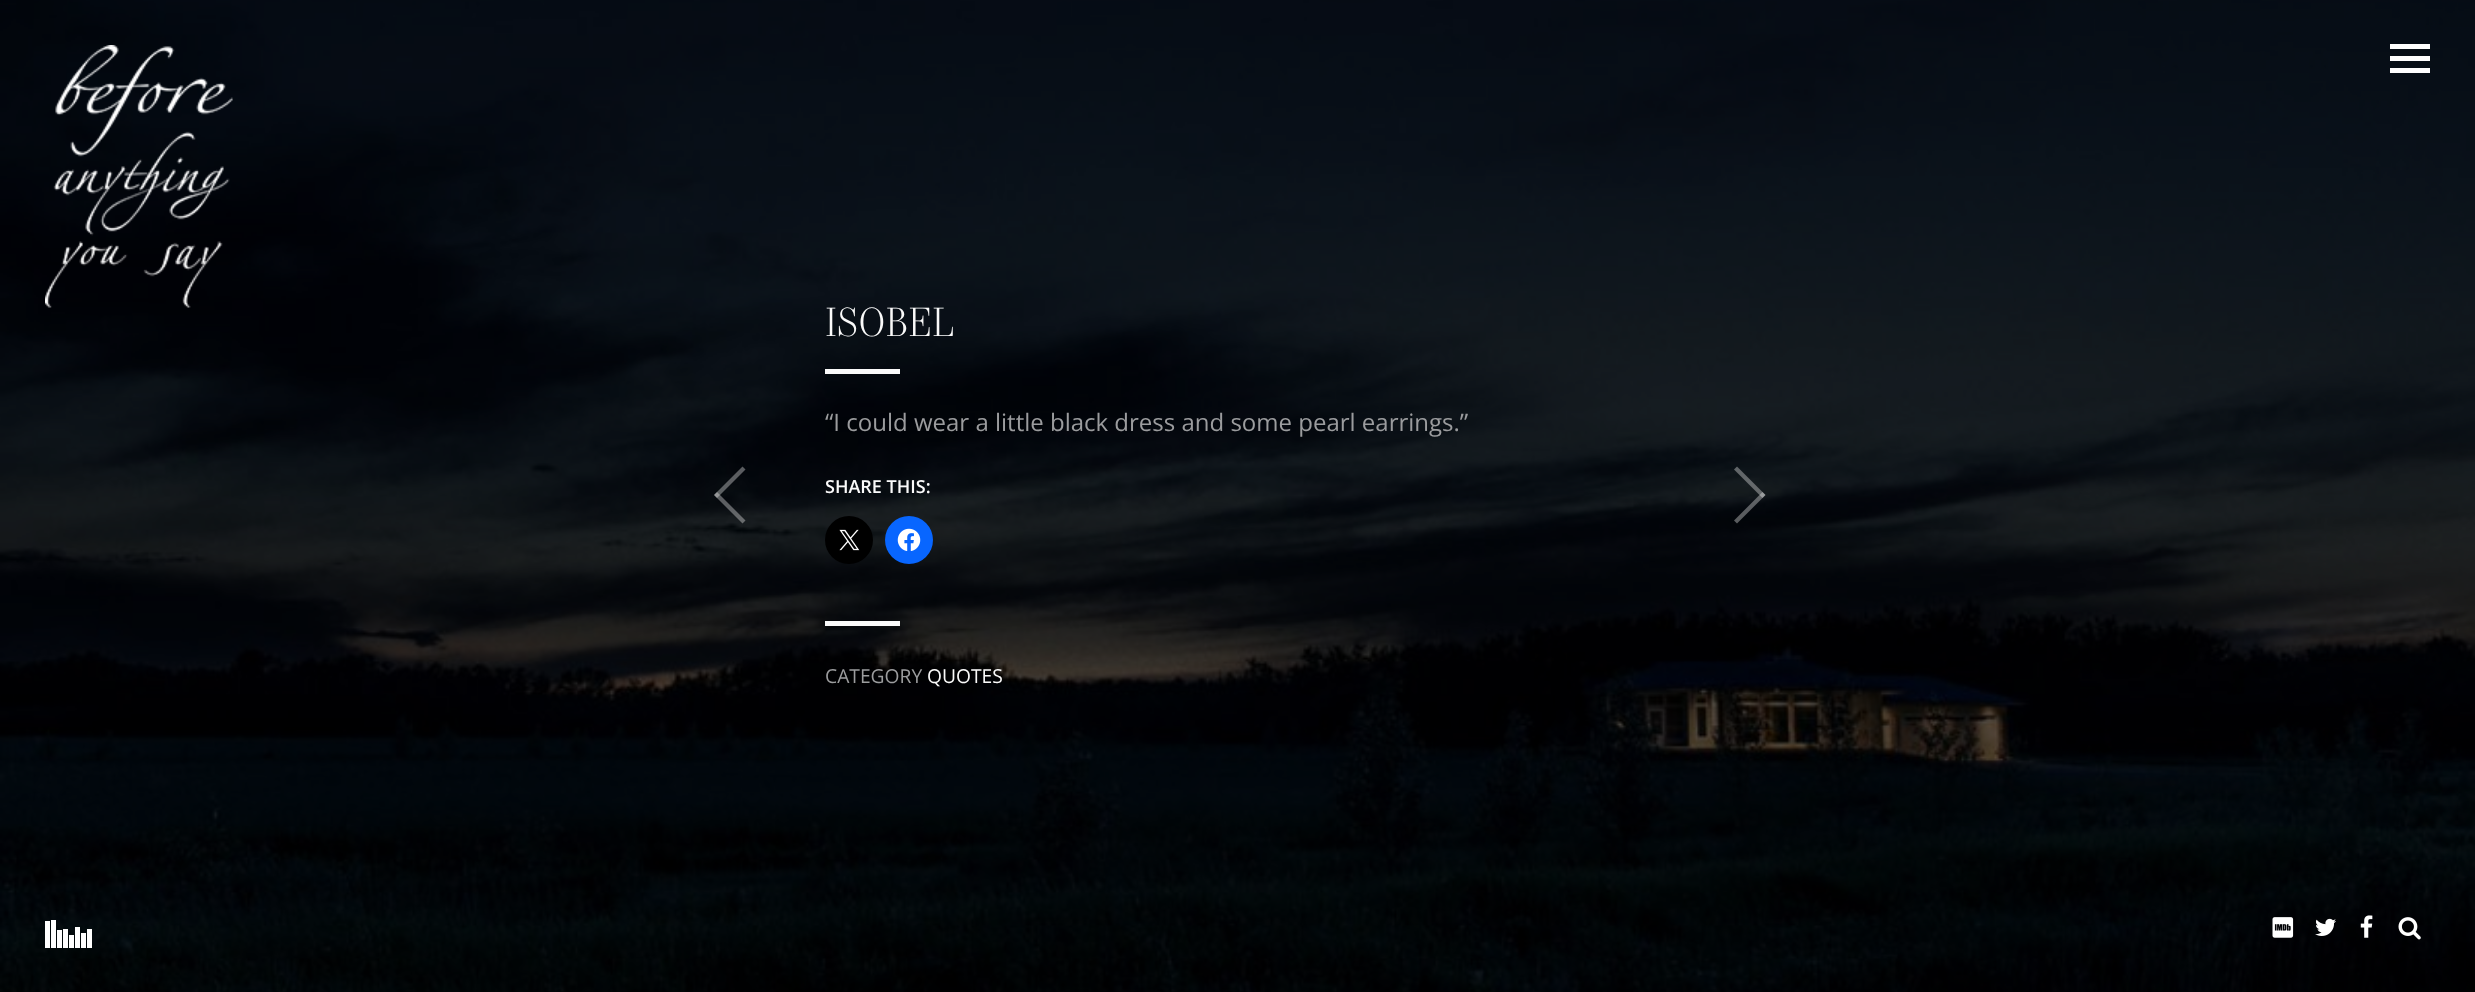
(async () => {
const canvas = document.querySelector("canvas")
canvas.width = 2475
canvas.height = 992
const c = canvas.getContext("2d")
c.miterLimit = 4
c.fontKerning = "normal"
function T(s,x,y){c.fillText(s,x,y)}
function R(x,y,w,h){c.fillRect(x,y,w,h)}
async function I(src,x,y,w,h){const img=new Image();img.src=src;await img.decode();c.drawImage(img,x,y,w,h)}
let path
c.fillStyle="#fff"
R(0,0,2475,992)
await I("1.png",0,0,2475,992)
await I("2.png",45,45,188,263)
R(2390,56,40,5)
R(2390,44,40,5)
R(2390,68,40,5)
c.fillStyle="#ffffff59"
path = new Path2D("M717 498l-3-3l28.5-28.5l3 3z")
c.fill(path)
path = new Path2D("M714 495l3-3l28.5 28.5l-3 3z")
c.fill(path)
c.font="300 38.5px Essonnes"
c.fillStyle="#fafafa"
T("ISOBEL",825,336)
R(825,369,75,5)
c.font="24px Open Sans"
c.fillStyle="#9b9c9e"
T("“I could wear a little black dress and some pearl earrings.”",825,431)
c.font="600 18px Open Sans"
c.fillStyle="#fafafa"
T("SHARE THIS:",825,493)
c.fillStyle="#000"
c.beginPath()
c.arc(849,540,24,0,7)
c.fill()
await I("3.png",839,529,21,22)
c.fillStyle="#0866ff"
c.beginPath()
c.arc(909,540,24,0,7)
c.fill()
await I("4.png",897,528,24,23)
c.fillStyle="#fafafa"
R(825,621,75,5)
c.font="19.25px Open Sans"
c.fillStyle="#9b9c9e"
T("CATEGORY",825,683)
c.fillStyle="#fafafa"
T("QUOTES",927,683)
c.fillStyle="#ffffff59"
path = new Path2D("M1765.5 495l-3 3l-28.5-28.5l3-3z")
c.fill(path)
path = new Path2D("M1762.5 492l3 3l-28.5 28.5l-3-3z")
c.fill(path)
c.fillStyle="#fff"
R(45,921,5,27)
R(51,920,5,28)
R(57,930,5,18)
R(63,929,5,19)
R(69,935,5,13)
R(75,927,5,21)
R(81,933,5,15)
R(87,929,5,19)
await I("5.png",2272,917,22,21)
await I("6.png",2315,918,21,18)
await I("7.png",2360,915,13,23)
await I("8.png",2398,917,23,23)
})()
